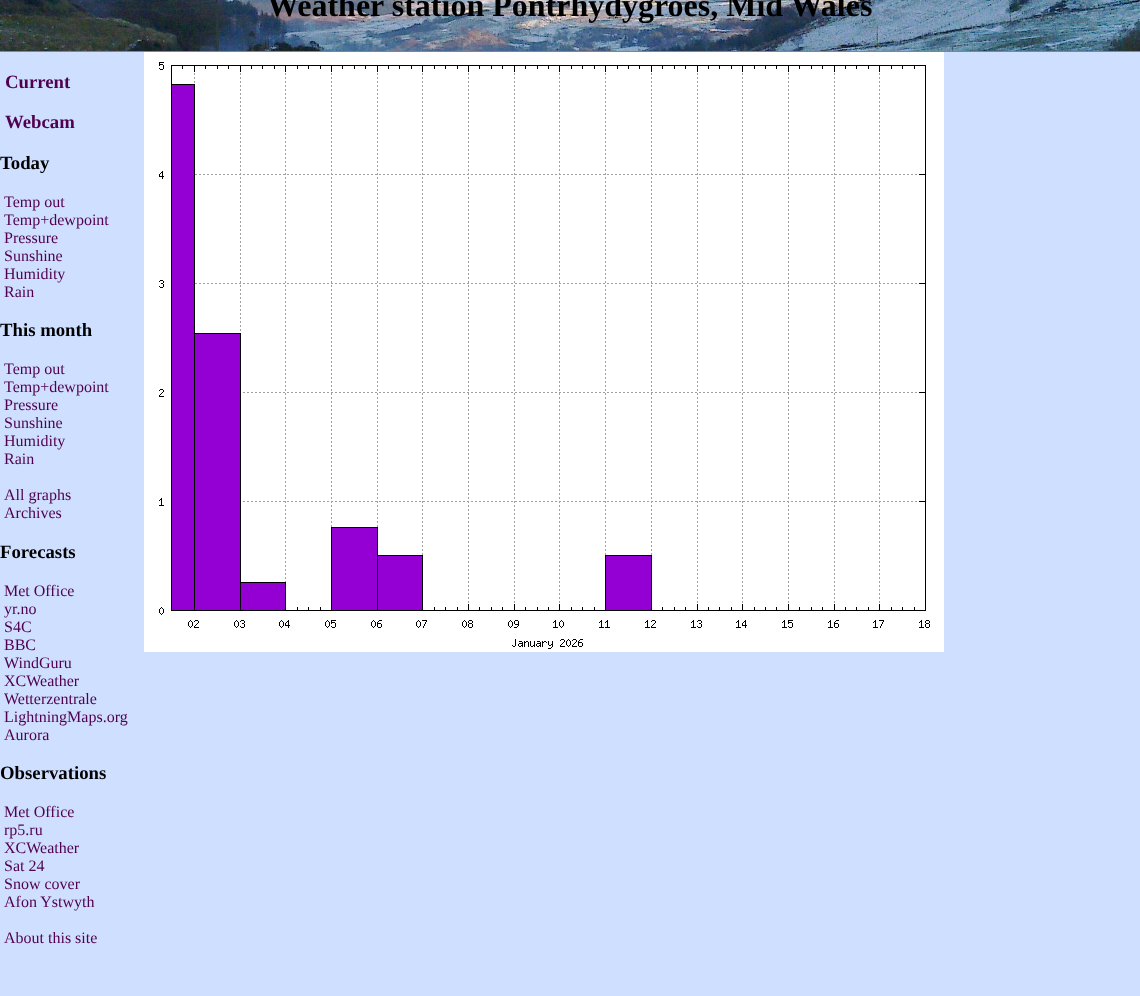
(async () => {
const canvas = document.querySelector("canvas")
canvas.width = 1140
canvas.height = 996
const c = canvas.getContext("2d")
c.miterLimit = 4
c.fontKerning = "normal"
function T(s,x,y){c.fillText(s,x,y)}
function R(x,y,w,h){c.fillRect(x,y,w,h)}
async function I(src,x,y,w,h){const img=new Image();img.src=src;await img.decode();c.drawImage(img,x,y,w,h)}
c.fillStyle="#cfdfff"
R(0,0,1140,996)
await I("1.png",0,0,1140,51)
c.fillStyle="#8080b0"
R(0,51,1140,1)
c.font="bold 32px Liberation Serif"
c.fillStyle="#000"
T("Weather station Pontrhydygroes, Mid Wales",267,16)
c.font="bold 18.75px Liberation Serif"
c.fillStyle="#500050"
T("Current",5,88)
T("Webcam",5,128)
c.fillStyle="#000"
T("Today",0,169)
c.font="16px Liberation Serif"
c.fillStyle="#500050"
T("Temp out",4,207)
T("Temp+dewpoint",4,225)
T("Pressure",4,243)
T("Sunshine",4,261)
T("Humidity",4,279)
T("Rain",4,297)
c.font="bold 18.75px Liberation Serif"
c.fillStyle="#000"
T("This month",0,336)
c.font="16px Liberation Serif"
c.fillStyle="#500050"
T("Temp out",4,374)
T("Temp+dewpoint",4,392)
T("Pressure",4,410)
T("Sunshine",4,428)
T("Humidity",4,446)
T("Rain",4,464)
T("All graphs",4,500)
T("Archives",4,518)
c.font="bold 18.75px Liberation Serif"
c.fillStyle="#000"
T("Forecasts",0,558)
c.font="16px Liberation Serif"
c.fillStyle="#500050"
T("Met Office",4,596)
T("yr.no",4,614)
T("S4C",4,632)
T("BBC",4,650)
T("WindGuru",4,668)
T("XCWeather",4,686)
T("Wetterzentrale",4,704)
T("LightningMaps.org",4,722)
T("Aurora",4,740)
c.font="bold 18.75px Liberation Serif"
c.fillStyle="#000"
T("Observations",0,779)
c.font="16px Liberation Serif"
c.fillStyle="#500050"
T("Met Office",4,817)
T("rp5.ru",4,835)
T("XCWeather",4,853)
T("Sat 24",4,871)
T("Snow cover",4,889)
T("Afon Ystwyth",4,907)
T("About this site",4,943)
await I("2.png",144,52,800,600)
})()
